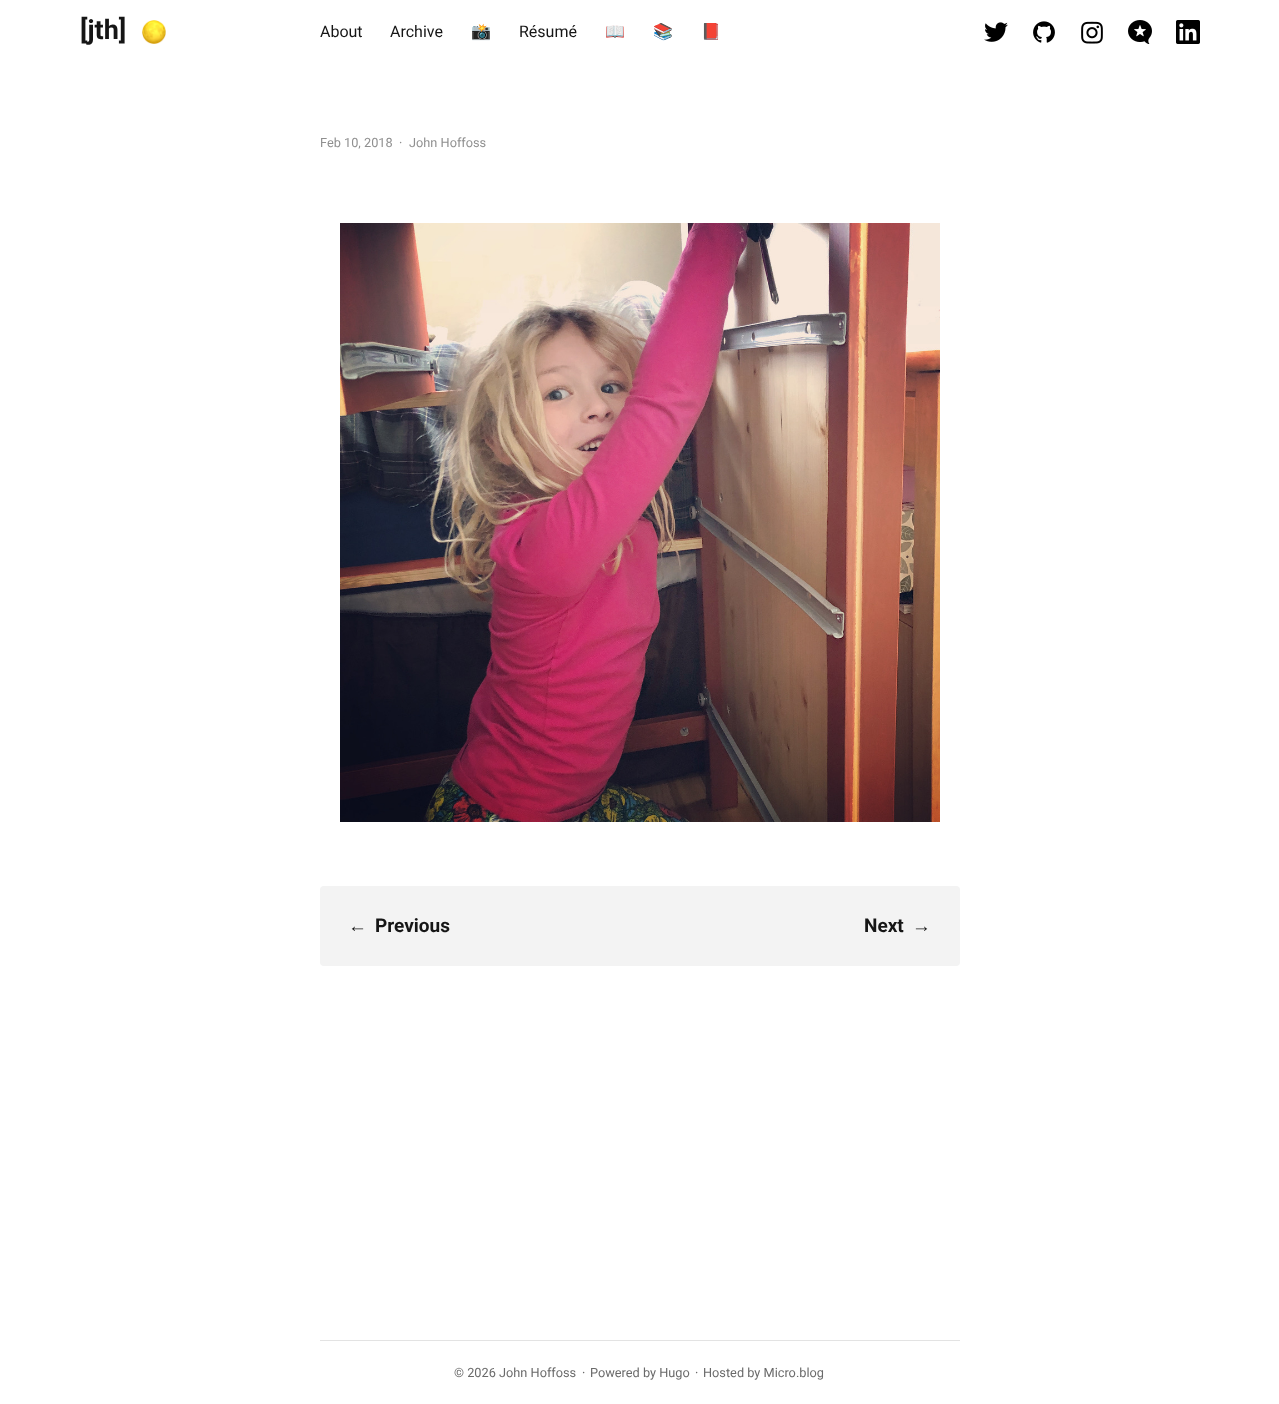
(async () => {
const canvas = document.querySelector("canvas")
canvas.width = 1279
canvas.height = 1404
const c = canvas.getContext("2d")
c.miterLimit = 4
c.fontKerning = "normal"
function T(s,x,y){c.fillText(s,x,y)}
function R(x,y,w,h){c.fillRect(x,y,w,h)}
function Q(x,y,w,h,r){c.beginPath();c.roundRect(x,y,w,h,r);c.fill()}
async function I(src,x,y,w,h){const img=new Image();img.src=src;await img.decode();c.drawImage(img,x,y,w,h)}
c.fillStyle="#fff"
R(0,0,1279,1404)
c.font="bold 27px Roboto"
c.fillStyle="#161616"
T("[jth]",80,39)
await I("1.png",142,20,24,24)
c.font="16px Roboto"
T("About",320,37)
T("Archive",390,37)
c.font="16px Noto Color Emoji"
T("📸",471,37)
c.font="16px Roboto"
T("Résumé",519,37)
c.font="16px Noto Color Emoji"
T("📖",605,37)
T("📚",653,37)
T("📕",701,37)
await I("2.png",984,22,24,20)
await I("3.png",1033,21,22,22)
await I("4.png",1081,21,22,23)
await I("5.png",1128,20,24,24)
await I("6.png",1176,20,24,24)
c.font="12.75px Roboto"
c.fillStyle="#8f8f8f"
T("Feb 10, 2018",320,147)
T("·",399,147)
T("John Hoffoss",409,147)
await I("7.png",340,223,600,599)
c.fillStyle="#f3f3f3"
Q(320,886,640,80,4)
c.font="bold 19px Liberation Sans"
c.fillStyle="#161616"
T("←",348,932)
c.font="bold 19px Roboto"
T("Previous",375,932)
T("Next",864,932)
c.font="bold 19px Liberation Sans"
T("→",912,932)
c.fillStyle="#e3e3e3"
R(320,1340,640,1)
c.font="12.75px Roboto"
c.fillStyle="#6a6a6a"
T("© 2026 John Hoffoss",454,1377)
T("·",582,1377)
T("Powered by Hugo️️",590,1377)
T("·",695,1377)
T("Hosted by Micro.blog",703,1377)
})()
